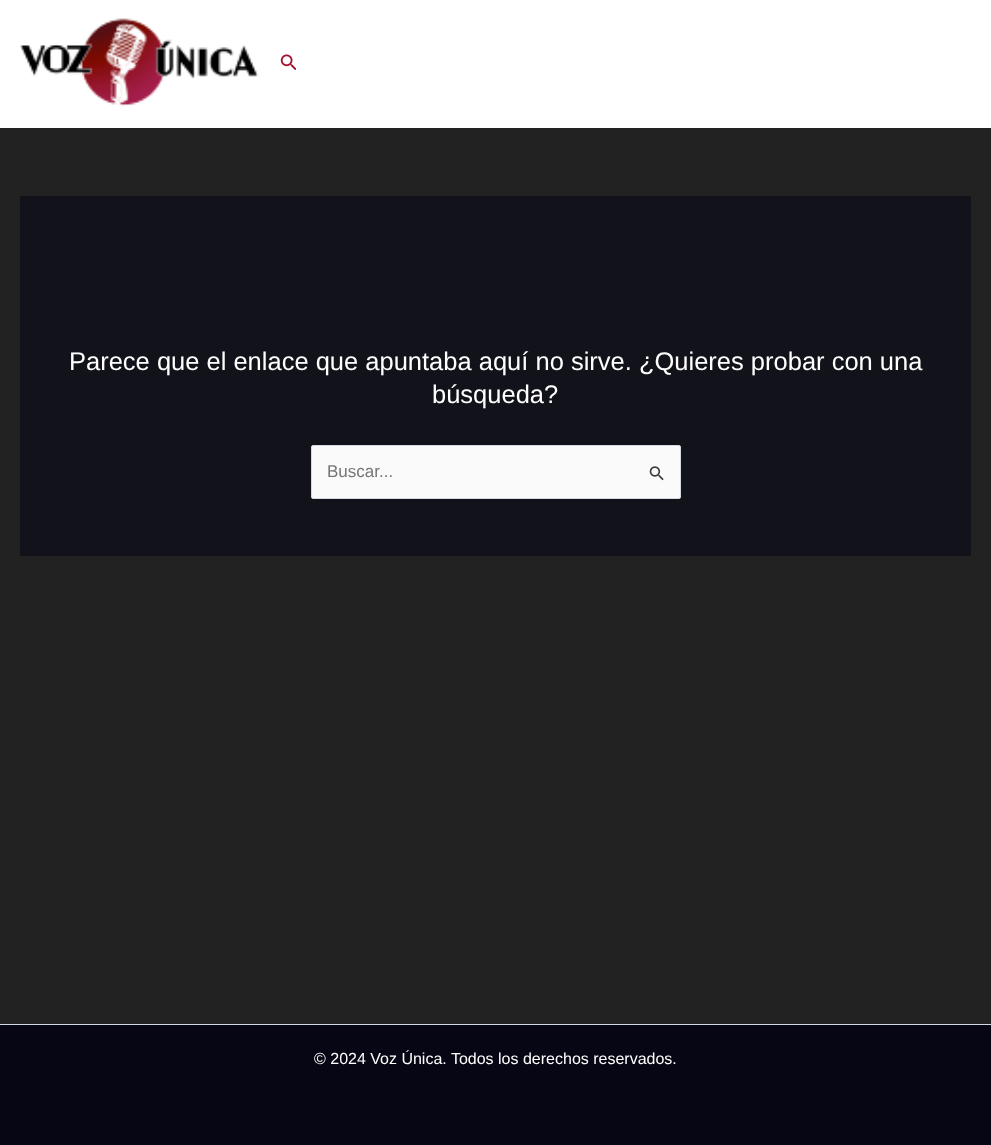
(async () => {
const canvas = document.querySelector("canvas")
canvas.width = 991
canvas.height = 1145
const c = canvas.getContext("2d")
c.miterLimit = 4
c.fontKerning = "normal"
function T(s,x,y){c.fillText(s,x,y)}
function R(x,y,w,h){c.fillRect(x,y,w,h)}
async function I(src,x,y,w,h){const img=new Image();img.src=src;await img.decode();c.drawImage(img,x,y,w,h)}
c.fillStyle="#222"
R(0,0,991,1145)
c.fillStyle="#fff"
R(0,0,991,128)
await I("1.png",20,18,239,89)
await I("2.png",280,54,16,17)
c.fillStyle="#12131a"
R(20,196,951,360)
c.font="25.5px Liberation Sans"
c.fillStyle="#fff"
T("Parece que el enlace que apuntaba aquí no sirve. ¿Quieres probar con una",69,370)
T("búsqueda?",432,403)
c.fillStyle="#fafafa"
c.beginPath()
c.roundRect(311.5,445.5,369,53,1.5)
c.fill()
c.strokeStyle="#d1dae5"
c.stroke()
c.font="17px Liberation Sans"
c.fillStyle="#757575"
T("Buscar...",327,477)
await I("3.png",649,466,15,15)
c.fillStyle="#070614"
R(0,1025,991,120)
c.fillStyle="#d1dae5"
R(0,1024,991,1)
c.font="16px Liberation Sans"
c.fillStyle="#fff"
T("© 2024 Voz Única. Todos los derechos reservados.",314,1064)
})()
